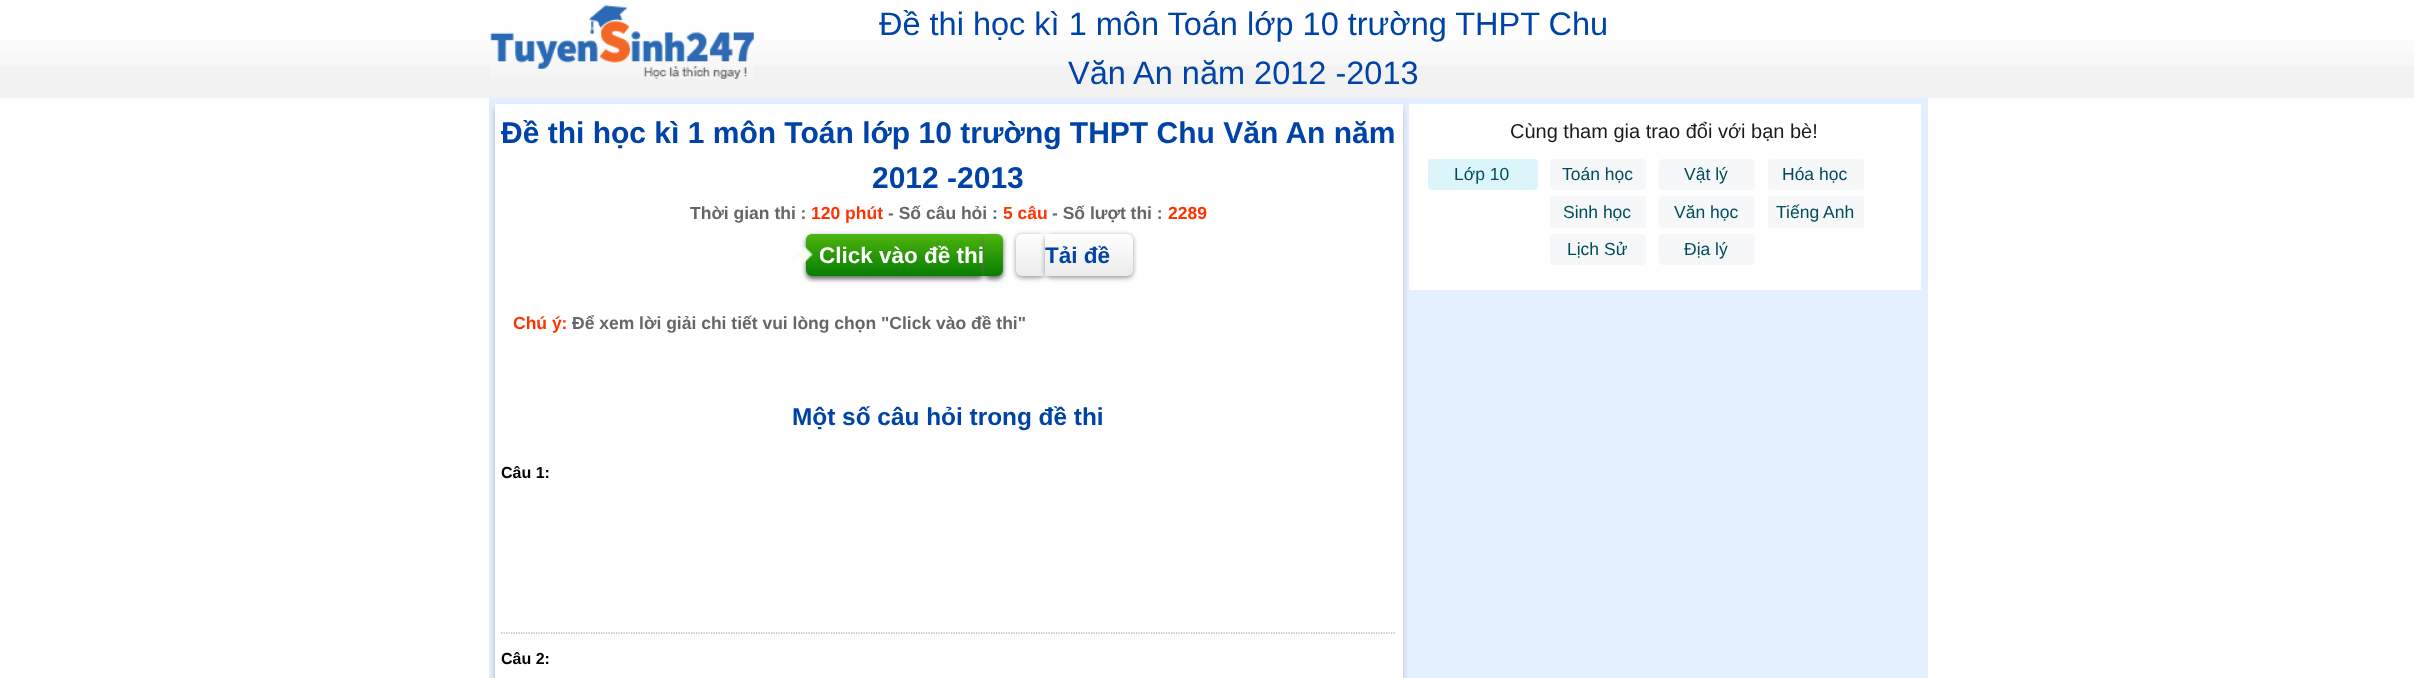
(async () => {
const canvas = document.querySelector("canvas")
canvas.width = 2414
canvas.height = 678
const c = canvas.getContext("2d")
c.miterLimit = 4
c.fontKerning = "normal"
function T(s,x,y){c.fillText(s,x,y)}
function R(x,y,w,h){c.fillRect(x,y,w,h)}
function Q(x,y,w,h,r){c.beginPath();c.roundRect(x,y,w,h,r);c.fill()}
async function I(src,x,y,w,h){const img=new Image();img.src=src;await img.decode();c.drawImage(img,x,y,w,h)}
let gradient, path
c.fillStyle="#fff"
R(0,0,2414,678)
c.fillStyle="#f2f2f2"
R(0,66,2414,32)
await I("1.png",0,0,2414,66)
await I("2.png",490,4,264,75)
c.font="32.5px Liberation Sans"
c.fillStyle="#0043a8"
T("Đề thi học kì 1 môn Toán lớp 10 trường THPT Chu",879,35)
T("Văn An năm 2012 -2013",1068,84)
c.fillStyle="#e3eeff"
R(489,98,1439,580)
c.fillStyle="#999"
c.filter="blur(3px)"
c.beginPath()
c.rect(496,109,905,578)
c.fill()
c.filter="none"
c.fillStyle="#fff"
R(495,104,908,574)
c.font="bold 30px Liberation Sans"
c.fillStyle="#0043a8"
T("Đề thi học kì 1 môn Toán lớp 10 trường THPT Chu Văn An năm",501,143)
T("2012 -2013",872,188)
c.font="bold 17.5px Liberation Sans"
c.fillStyle="#666"
T("Thời gian thi :",690,219)
c.fillStyle="#f30"
T("120 phút",811,219)
c.fillStyle="#666"
T("- Số câu hỏi :",888,219)
c.fillStyle="#f30"
T("5 câu",1003,219)
c.fillStyle="#666"
T("- Số lượt thi :",1052,219)
c.fillStyle="#f30"
T("2289",1168,219)
c.fillStyle="#666"
c.filter="blur(2.5px)"
c.beginPath()
c.roundRect(806,236,178,43,6)
c.fill()
c.filter="none"
gradient = c.createLinearGradient(806,234,806,276)
gradient.addColorStop(0,"#4eb50e")
gradient.addColorStop(1,"#077d01")
c.fillStyle = gradient
c.beginPath()
c.roundRect(806,234,178,42,[6,0,0,6])
c.fill()
await I("3.png",791,245,22,21)
c.fillStyle="#666"
c.filter="blur(2.5px)"
c.beginPath()
c.roundRect(984,236,19,43,6)
c.fill()
c.filter="none"
c.font="bold 22.5px Liberation Sans"
c.fillStyle="#fff"
T("Click vào đề thi",819,263)
gradient = c.createLinearGradient(984,234,984,276)
gradient.addColorStop(0,"#4eb50e")
gradient.addColorStop(1,"#077d01")
c.fillStyle = gradient
c.beginPath()
c.roundRect(984,234,19,42,[0,6,6,0])
c.fill()
c.fillStyle="#999"
c.filter="blur(2.5px)"
c.beginPath()
c.roundRect(1016,235,29,43,6)
c.fill()
c.filter="none"
gradient = c.createLinearGradient(1016,234,1016,276)
gradient.addColorStop(0,"#fff")
gradient.addColorStop(1,"#ebebeb")
c.fillStyle = gradient
c.beginPath()
c.roundRect(1016,234,29,42,[6,0,0,6])
c.fill()
c.fillStyle="#999"
c.filter="blur(2.5px)"
c.beginPath()
c.roundRect(1045,235,88,43,6)
c.fill()
c.filter="none"
gradient = c.createLinearGradient(1045,234,1045,276)
gradient.addColorStop(0,"#fff")
gradient.addColorStop(1,"#ebebeb")
c.fillStyle = gradient
c.beginPath()
c.roundRect(1045,234,88,42,[0,6,6,0])
c.fill()
c.fillStyle="#0043a8"
T("Tải đề",1045,263)
c.font="bold 17.5px Liberation Sans"
c.fillStyle="#f30"
T("Chú ý:",513,329)
c.fillStyle="#666"
T("Để xem lời giải chi tiết vui lòng chọn \"Click vào đề thi\"",572,329)
c.font="bold 24.4px Liberation Sans"
c.fillStyle="#0043a8"
T("Một số câu hỏi trong đề thi",792,425)
path = new Path2D("M501 633h895")
c.strokeStyle="#949495"
c.lineWidth=1.2
c.setLineDash([1.25,1.25])
c.stroke(path)
c.font="bold 16px Liberation Sans"
c.fillStyle="#000"
T("Câu 1:",501,478)
T("Câu 2:",501,664)
c.fillStyle="#fff"
R(1409,104,512,186)
c.font="20px Liberation Sans"
c.fillStyle="#1a1a1a"
T("Cùng tham gia trao đổi với bạn bè!",1510,138)
c.fillStyle="#dcf5fa"
Q(1428,159,110,31,4)
c.font="17.5px Liberation Sans"
c.fillStyle="#004c5b"
T("Lớp 10",1454,180)
c.fillStyle="#f6f7f8"
Q(1550,159,96,31,4)
c.fillStyle="#004c5b"
T("Toán học",1562,180)
c.fillStyle="#f6f7f8"
Q(1659,159,96,31,4)
c.fillStyle="#004c5b"
T("Vật lý",1684,180)
c.fillStyle="#f6f7f8"
Q(1768,159,96,31,4)
c.fillStyle="#004c5b"
T("Hóa học",1782,180)
c.fillStyle="#f6f7f8"
Q(1550,196,96,32,4)
c.fillStyle="#004c5b"
T("Sinh học",1563,218)
c.fillStyle="#f6f7f8"
Q(1659,196,96,32,4)
c.fillStyle="#004c5b"
T("Văn học",1674,218)
c.fillStyle="#f6f7f8"
Q(1768,196,96,32,4)
c.fillStyle="#004c5b"
T("Tiếng Anh",1776,218)
c.fillStyle="#f6f7f8"
Q(1550,234,96,31,4)
c.fillStyle="#004c5b"
T("Lịch Sử",1567,255)
c.fillStyle="#f6f7f8"
Q(1659,234,96,31,4)
c.fillStyle="#004c5b"
T("Địa lý",1684,255)
})()
